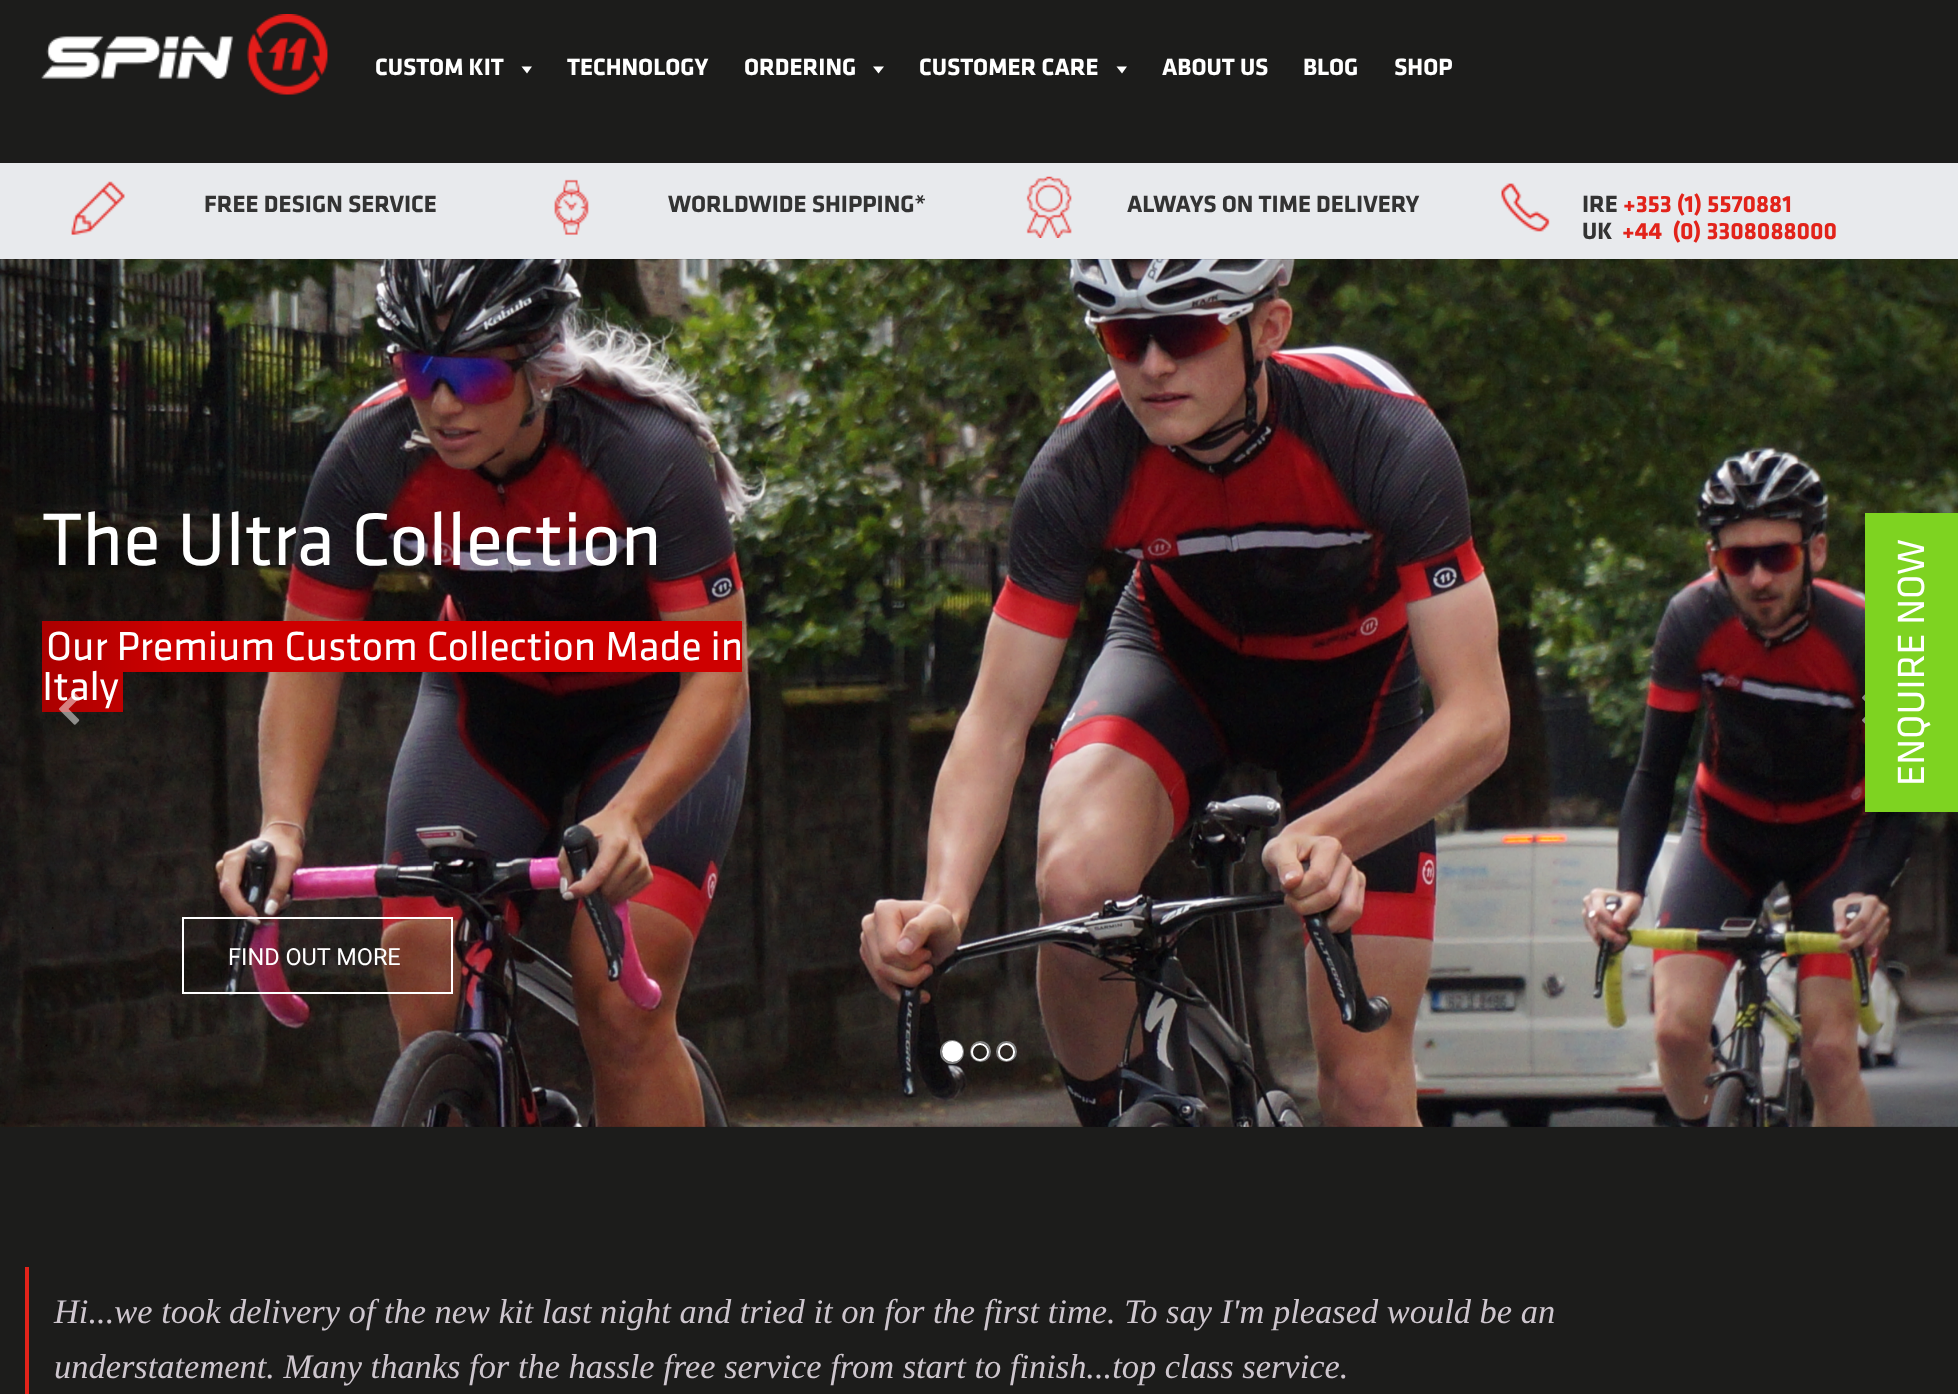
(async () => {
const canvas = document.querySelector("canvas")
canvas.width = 1958
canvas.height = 1394
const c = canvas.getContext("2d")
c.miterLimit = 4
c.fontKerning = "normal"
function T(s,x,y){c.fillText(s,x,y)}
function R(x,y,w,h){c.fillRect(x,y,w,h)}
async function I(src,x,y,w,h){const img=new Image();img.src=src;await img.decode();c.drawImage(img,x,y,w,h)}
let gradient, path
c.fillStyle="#1c1c1b"
R(0,0,1958,1394)
await I("1.png",41,14,287,81)
c.font="bold 24.5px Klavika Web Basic"
c.fillStyle="#fff"
T("CUSTOM KIT",375,75)
path = new Path2D("M521.5 66.5h10.5l-5 7z")
c.fill(path)
T("TECHNOLOGY",567,75)
T("ORDERING",744,75)
path = new Path2D("M873 66.5h11l-5.5 7z")
c.fill(path)
T("CUSTOMER CARE",919,75)
path = new Path2D("M1116.5 66.5h10.5l-5 7z")
c.fill(path)
T("ABOUT US",1162,75)
T("BLOG",1303,75)
T("SHOP",1394,75)
c.fillStyle="#e8eaed"
R(0,163,1958,96)
await I("2.png",71,181,54,54)
c.fillStyle="#333"
T("FREE DESIGN SERVICE",204,212)
await I("3.png",554,179,35,56)
T("WORLDWIDE SHIPPING*",668,212)
await I("4.png",1026,176,46,62)
T("ALWAYS ON TIME DELIVERY",1127,212)
await I("5.png",1501,183,49,49)
T("IRE",1582,212)
c.fillStyle="#e2231a"
T("+353 (1) 5570881",1623,212)
c.fillStyle="#333"
T("UK",1582,239)
c.fillStyle="#e2231a"
T("+44  (0) 3308088000",1622,239)
await I("8.png",0,259,1958,868)
c.fillStyle="#ce0000"
R(42,621,700,51)
R(42,672,81,40)
gradient = c.createLinearGradient(-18,693,179,693)
gradient.addColorStop(0,"#00000040")
gradient.addColorStop(1,"#00000000")
c.fillStyle = gradient
R(0,259,162,868)
c.font="42px Klavika Web Basic"
c.fillStyle="#fff"
T("Italy",42,700)
await I("6.png",59,693,21,32)
gradient = c.createLinearGradient(1762,693,1958,693)
gradient.addColorStop(0,"#00000000")
gradient.addColorStop(1,"#00000040")
c.fillStyle = gradient
R(1779,259,179,868)
await I("7.png",1862,694,3,30)
c.font="77px Klavika Web Basic"
c.fillStyle="#fff"
T("The Ultra Collection",42,565)
c.font="42px Klavika Web Basic"
T("Our Premium Custom Collection Made in",46,660)
c.strokeStyle="#fff"
c.lineWidth=2
c.strokeRect(183,918,269,75)
c.font="23.5px Roboto"
T("FIND OUT MORE",228,965)
c.beginPath()
c.arc(952,1052,11,0,7)
c.strokeStyle="#808080"
c.stroke()
c.beginPath()
c.arc(952.5,1051.5,9.5,0,7)
c.fill()
c.strokeStyle="#fff"
c.stroke()
c.beginPath()
c.arc(980.5,1051.5,9.5,0,7)
c.strokeStyle="#808080"
c.stroke()
c.beginPath()
c.arc(980,1052,8,0,7)
c.strokeStyle="#fff"
c.stroke()
c.beginPath()
c.arc(1006.5,1051.5,9.5,0,7)
c.strokeStyle="#808080"
c.stroke()
c.beginPath()
c.roundRect(999,1044,15,16,7.5)
c.strokeStyle="#fff"
c.stroke()
c.fillStyle="#e2231a"
R(25,1267,4,127)
c.font="italic 34.45px Liberation Serif"
c.fillStyle="#cec6ce"
T("Hi...we took delivery of the new kit last night and tried it on for the first time. To say I'm pleased would be an",54,1323)
T("understatement. Many thanks for the hassle free service from start to finish...top class service.",54,1378)
c.fillStyle="#7ed321"
R(1865,513,93,299)
c.font="39.25px Klavika Web Basic"
c.fillStyle="#fff"
c.save()
c.translate(1924,786)
c.rotate(-90 * Math.PI / 180)
c.fillText("ENQUIRE NOW",0,0)
c.restore()
})()
